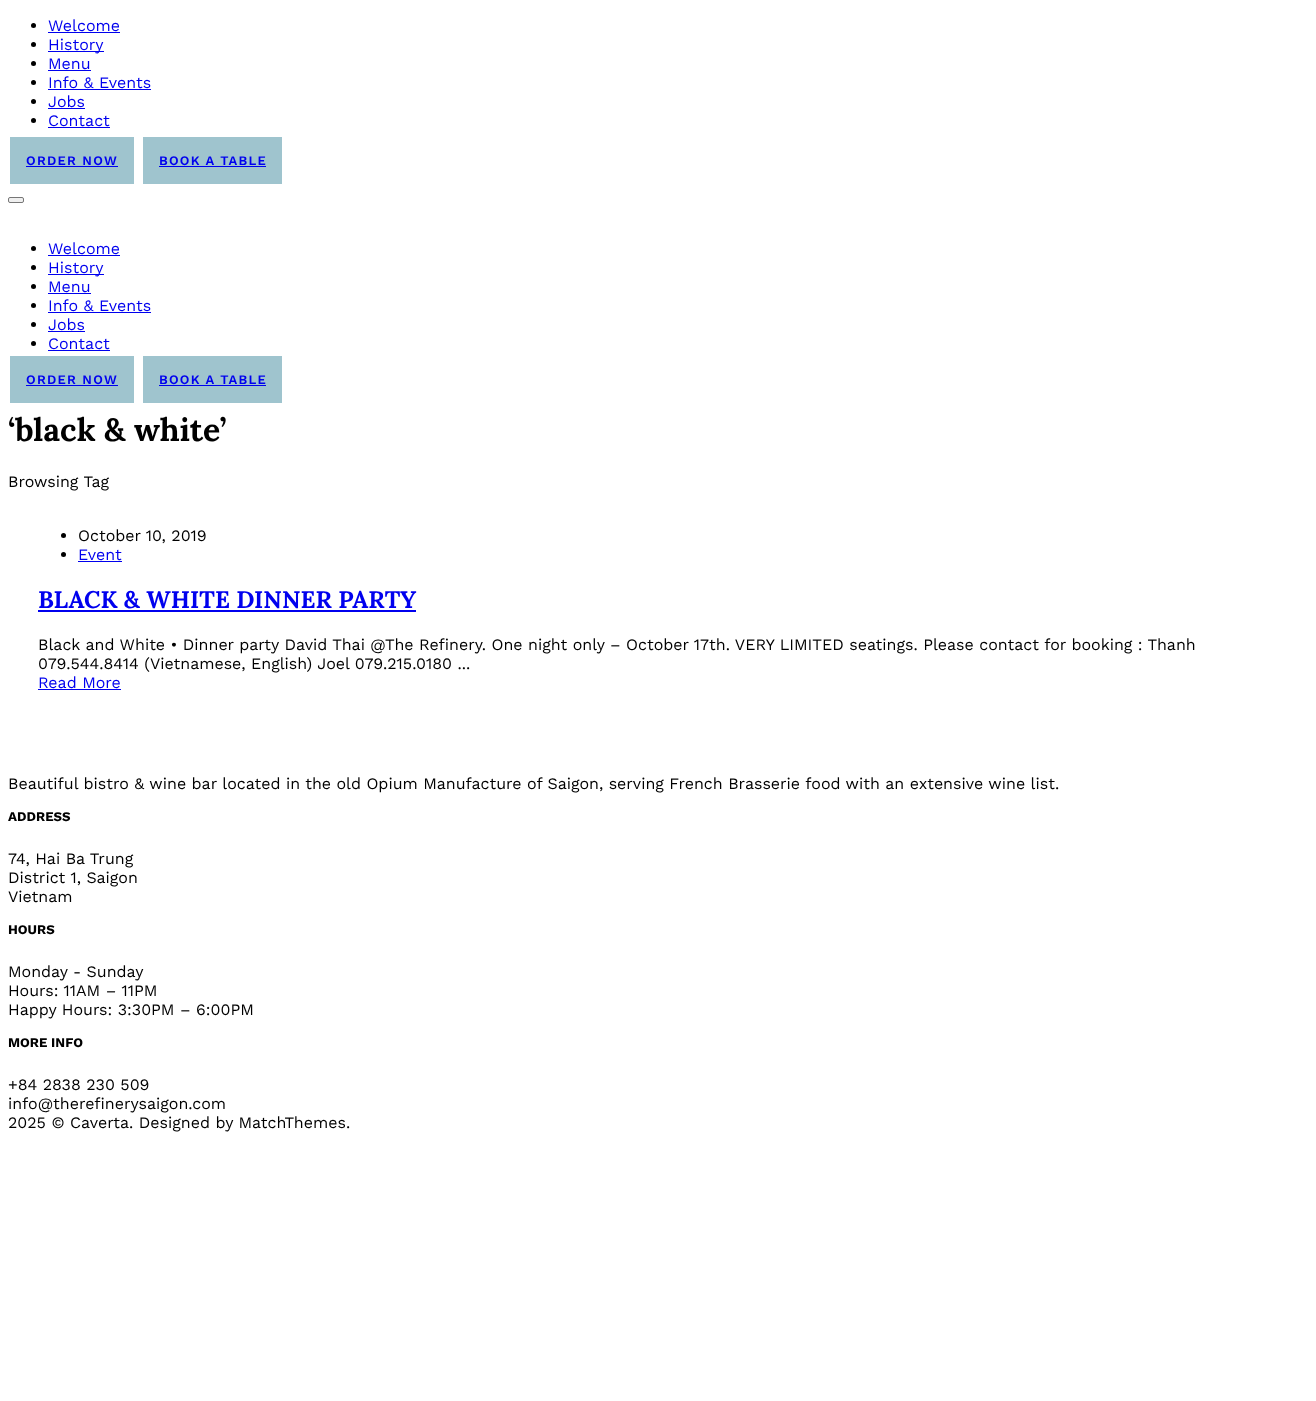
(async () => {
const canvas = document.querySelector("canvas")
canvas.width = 1316
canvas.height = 1401
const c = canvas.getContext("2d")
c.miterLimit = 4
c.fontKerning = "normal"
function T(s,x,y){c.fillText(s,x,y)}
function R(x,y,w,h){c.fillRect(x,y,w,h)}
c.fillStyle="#fff"
R(0,0,1316,1401)
c.fillStyle="#000"
c.beginPath()
c.arc(33.5,25.5,2.5,0,7)
c.fill()
c.font="16px Work Sans"
c.fillStyle="#00e"
T("Welcome",48,31)
R(48,32,72,1)
c.fillStyle="#000"
c.beginPath()
c.arc(33.5,44.5,2.5,0,7)
c.fill()
c.fillStyle="#00e"
R(48,51,56,1)
T("History",48,50)
c.fillStyle="#000"
c.beginPath()
c.arc(33.5,63.5,2.5,0,7)
c.fill()
c.fillStyle="#00e"
T("Menu",48,69)
R(48,70,43,1)
c.fillStyle="#000"
c.beginPath()
c.arc(33.5,82.5,2.5,0,7)
c.fill()
c.fillStyle="#00e"
T("Info & Events",48,88)
R(48,89,103,1)
c.fillStyle="#000"
c.beginPath()
c.arc(33.5,101.5,2.5,0,7)
c.fill()
c.fillStyle="#00e"
T("Jobs",48,107)
R(48,108,37,1)
c.fillStyle="#000"
c.beginPath()
c.arc(33.5,120.5,2.5,0,7)
c.fill()
c.fillStyle="#00e"
T("Contact",48,126)
R(48,127,62,1)
c.fillStyle="#9fc4ce"
R(10,137,124,47)
c.letterSpacing="1.25px"
c.font="600 13px Work Sans"
c.fillStyle="#00e"
T("ORDER NOW",26,165)
R(26,166,92,1)
c.fillStyle="#9fc4ce"
R(143,137,139,47)
c.fillStyle="#00e"
T("BOOK A TABLE",159,165)
R(159,166,107,1)
c.fillStyle="#efefef"
c.beginPath()
c.roundRect(8.5,197.5,15,5,1.5)
c.fill()
c.strokeStyle="#767676"
c.stroke()
c.fillStyle="#000"
c.beginPath()
c.arc(33.5,248.5,2.5,0,7)
c.fill()
c.letterSpacing="0px"
c.font="16px Work Sans"
c.fillStyle="#00e"
T("Welcome",48,254)
R(48,255,72,1)
c.fillStyle="#000"
c.beginPath()
c.arc(33.5,267.5,2.5,0,7)
c.fill()
c.fillStyle="#00e"
R(48,274,56,1)
T("History",48,273)
c.fillStyle="#000"
c.beginPath()
c.arc(33.5,286.5,2.5,0,7)
c.fill()
c.fillStyle="#00e"
T("Menu",48,292)
R(48,293,43,1)
c.fillStyle="#000"
c.beginPath()
c.arc(33.5,305.5,2.5,0,7)
c.fill()
c.fillStyle="#00e"
T("Info & Events",48,311)
R(48,312,103,1)
c.fillStyle="#000"
c.beginPath()
c.arc(33.5,324.5,2.5,0,7)
c.fill()
c.fillStyle="#00e"
T("Jobs",48,330)
R(48,331,37,1)
c.fillStyle="#000"
c.beginPath()
c.arc(33.5,343.5,2.5,0,7)
c.fill()
c.fillStyle="#00e"
T("Contact",48,349)
R(48,350,62,1)
c.fillStyle="#9fc4ce"
R(10,356,124,47)
c.letterSpacing="1.25px"
c.font="600 13px Work Sans"
c.fillStyle="#00e"
T("ORDER NOW",26,384)
R(26,385,92,1)
c.fillStyle="#9fc4ce"
R(143,356,139,47)
c.fillStyle="#00e"
T("BOOK A TABLE",159,384)
R(159,385,107,1)
c.letterSpacing="0px"
c.font="bold 32px Lora"
c.fillStyle="#000"
T("‘black & white’",8,441)
c.font="16px Work Sans"
T("Browsing Tag",8,487)
c.beginPath()
c.arc(63.5,535.5,2.5,0,7)
c.fill()
T("October 10, 2019",78,541)
c.beginPath()
c.arc(63.5,554.5,2.5,0,7)
c.fill()
c.fillStyle="#00e"
T("Event",78,560)
R(78,561,44,1)
c.font="bold 24px Lora"
T("BLACK & WHITE DINNER PARTY",38,608)
R(38,610,378,2)
c.font="16px Work Sans"
c.fillStyle="#000"
T("Black and White • Dinner party David Thai @The Refinery. One night only – October 17th. VERY LIMITED seatings. Please contact for booking : Thanh",38,650)
T("079.544.8414 (Vietnamese, English) Joel 079.215.0180 ...",38,669)
c.fillStyle="#00e"
T("Read More",38,688)
R(38,689,83,1)
c.fillStyle="#000"
T("Beautiful bistro & wine bar located in the old Opium Manufacture of Saigon, serving French Brasserie food with an extensive wine list.",8,789)
c.font="bold 13.25px Work Sans"
T("ADDRESS",8,821)
c.font="16px Work Sans"
T("74, Hai Ba Trung",8,864)
T("District 1, Saigon",8,883)
T("Vietnam",8,902)
c.font="bold 13.25px Work Sans"
T("HOURS",8,934)
c.font="16px Work Sans"
T("Monday - Sunday",8,977)
T("Hours: 11AM – 11PM",8,996)
T("Happy Hours: 3:30PM – 6:00PM",8,1015)
c.font="bold 13.25px Work Sans"
T("MORE INFO",8,1047)
c.font="16px Work Sans"
T("+84 2838 230 509",8,1090)
T("info@therefinerysaigon.com",8,1109)
T("2025 © Caverta. Designed by MatchThemes.",8,1128)
})()
